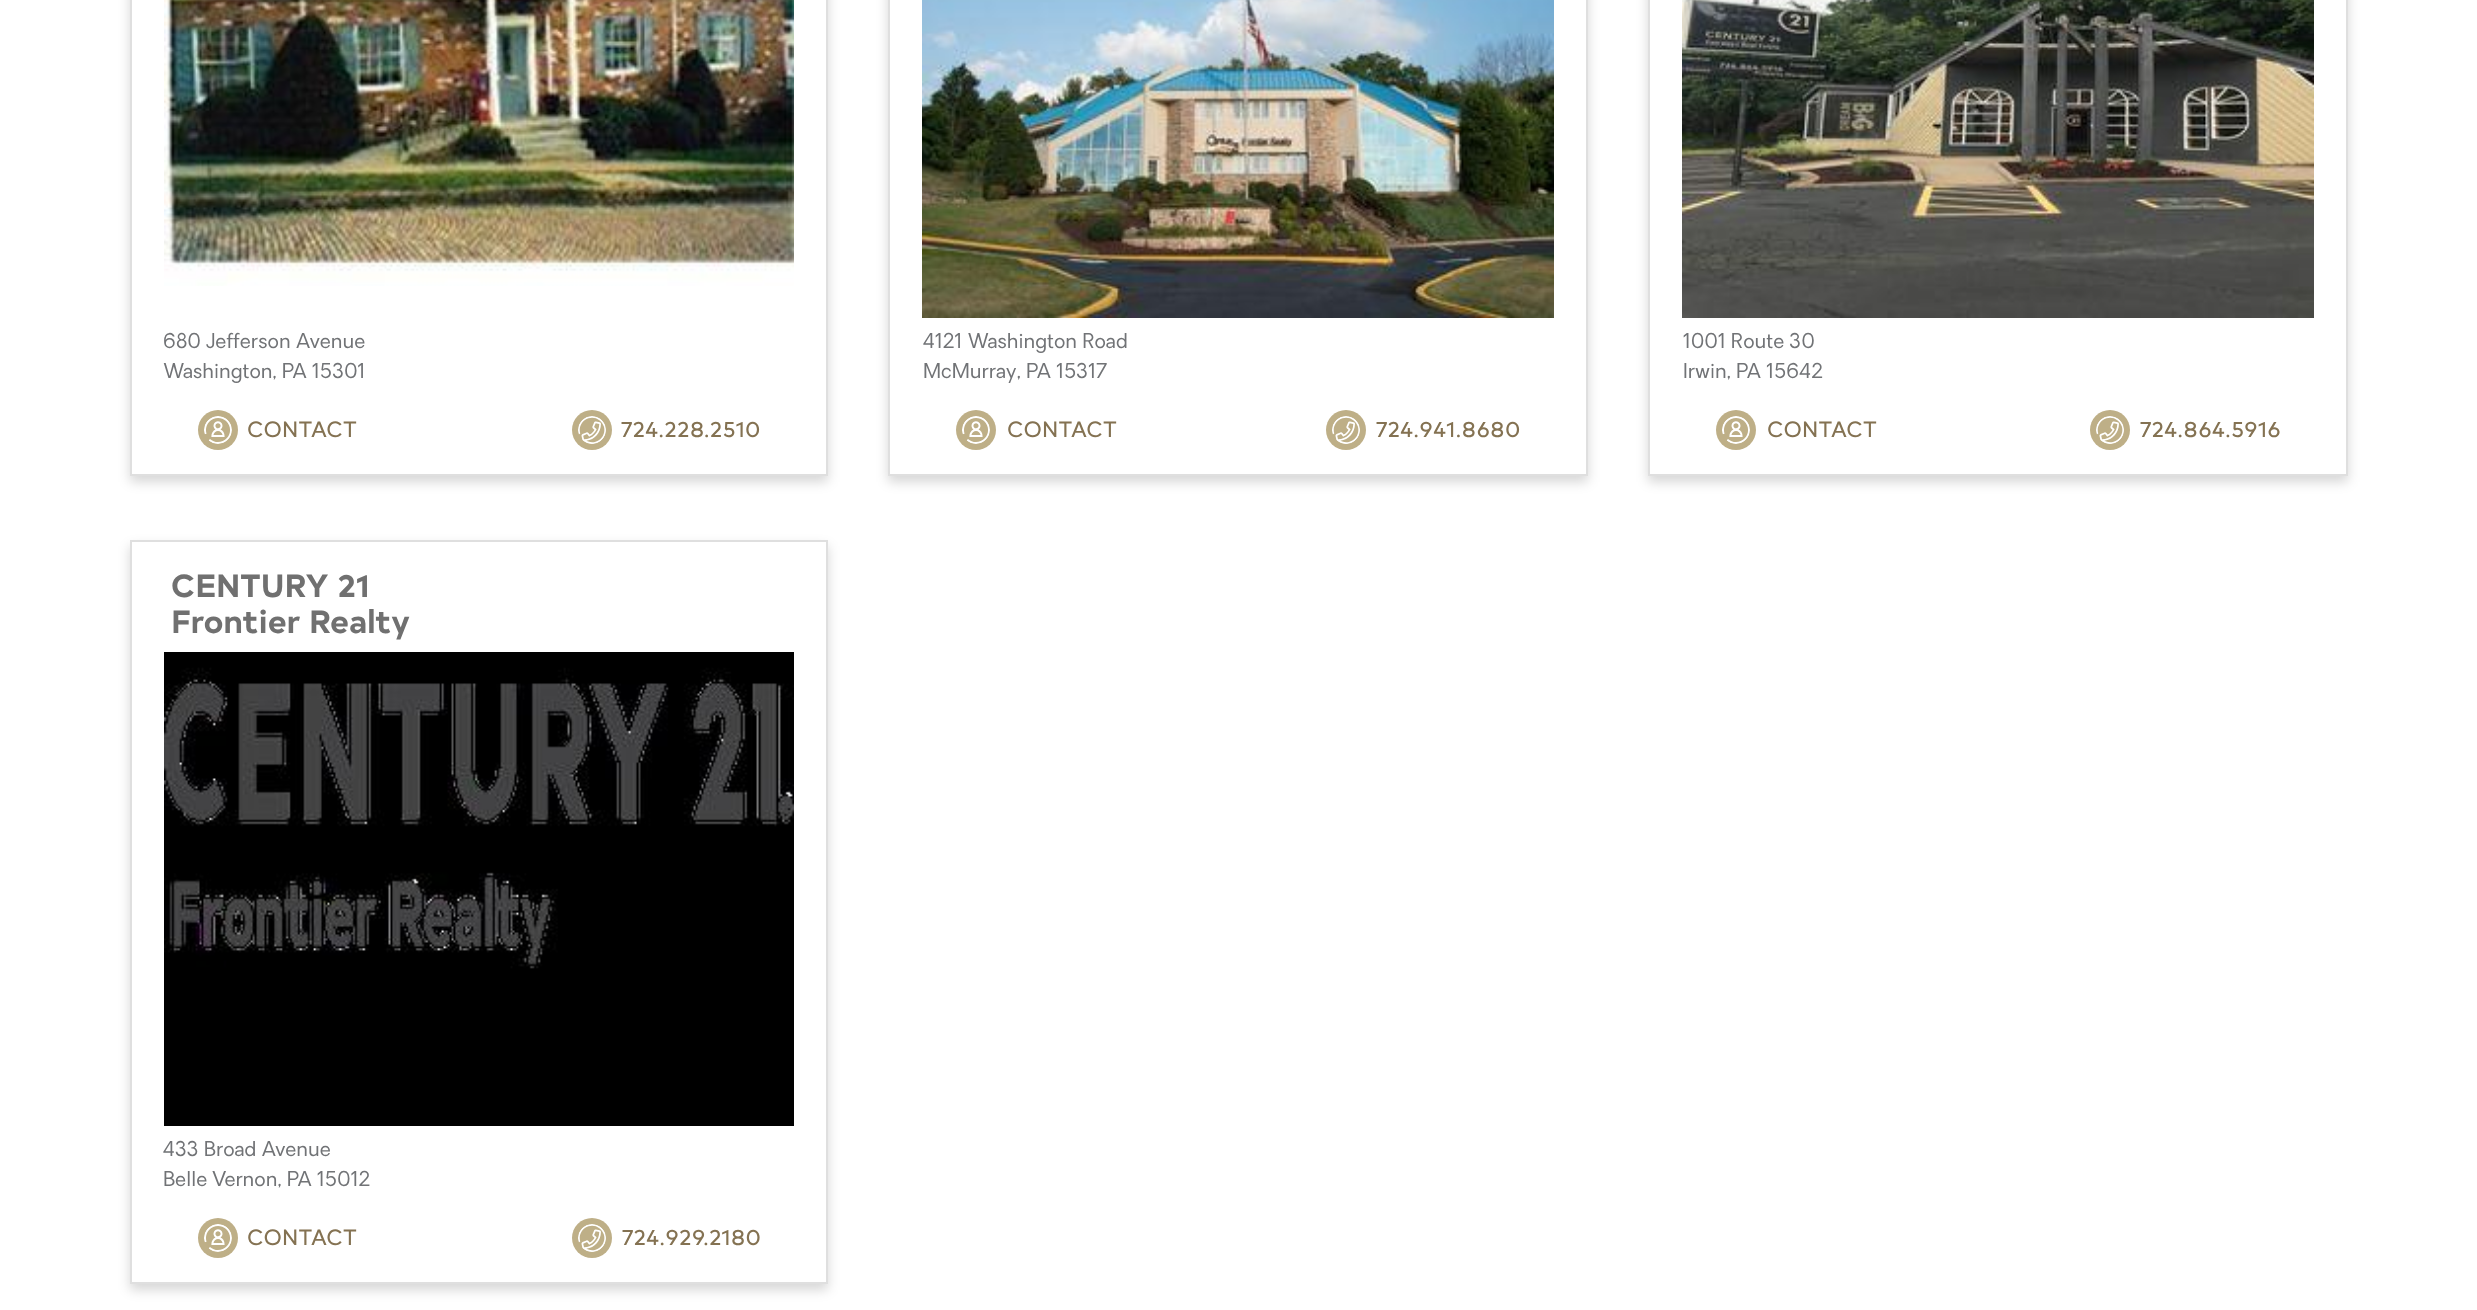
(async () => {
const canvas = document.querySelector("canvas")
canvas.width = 2477
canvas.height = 1310
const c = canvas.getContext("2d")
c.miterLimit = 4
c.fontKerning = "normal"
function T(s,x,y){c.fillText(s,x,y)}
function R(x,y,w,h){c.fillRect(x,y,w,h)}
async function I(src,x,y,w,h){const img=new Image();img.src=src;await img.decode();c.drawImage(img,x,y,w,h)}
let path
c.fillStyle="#fff"
R(0,0,2477,1310)
c.save()
path = new Path2D("M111 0h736v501h-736zm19-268h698v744h-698z")
c.clip(path,"evenodd")
c.fillStyle="#00000029"
c.filter="blur(6px)"
c.beginPath()
c.rect(130,-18,698,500)
c.fill()
c.filter="none"
c.restore()
c.strokeStyle="#dfdfdf"
c.lineWidth=2
c.strokeRect(131,-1,696,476)
await I("1.png",164,0,630,286)
c.font="20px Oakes"
c.fillStyle="#717376"
T("680 Jefferson Avenue",163,348)
T("Washington, PA 15301",163,378)
c.fillStyle="#beaf87"
c.beginPath()
c.arc(218,430,20,0,7)
c.fill()
await I("2.png",204,416,28,28)
c.font="22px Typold"
c.fillStyle="#847252"
T("CONTACT",247,437)
c.fillStyle="#beaf87"
c.beginPath()
c.arc(592,430,20,0,7)
c.fill()
await I("3.png",578,416,28,28)
c.fillStyle="#847252"
T("724.228.2510",621,437)
c.save()
path = new Path2D("M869 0h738v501h-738zm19-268h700v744h-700z")
c.clip(path,"evenodd")
c.fillStyle="#00000029"
c.filter="blur(6px)"
c.beginPath()
c.rect(888,-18,700,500)
c.fill()
c.filter="none"
c.restore()
c.strokeRect(889,-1,698,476)
await I("4.png",922,0,632,318)
c.font="20px Oakes"
c.fillStyle="#717376"
T("4121 Washington Road",923,348)
T("McMurray, PA 15317",923,378)
c.fillStyle="#beaf87"
c.beginPath()
c.arc(976,430,20,0,7)
c.fill()
await I("2.png",962,416,28,28)
c.font="22px Typold"
c.fillStyle="#847252"
T("CONTACT",1007,437)
c.fillStyle="#beaf87"
c.beginPath()
c.arc(1346,430,20,0,7)
c.fill()
await I("3.png",1332,416,28,28)
c.fillStyle="#847252"
T("724.941.8680",1376,437)
c.save()
path = new Path2D("M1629 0h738v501h-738zm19-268h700v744h-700z")
c.clip(path,"evenodd")
c.fillStyle="#00000029"
c.filter="blur(6px)"
c.beginPath()
c.rect(1648,-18,700,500)
c.fill()
c.filter="none"
c.restore()
c.strokeRect(1649,-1,698,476)
await I("5.png",1682,0,632,318)
c.font="20px Oakes"
c.fillStyle="#717376"
T("1001 Route 30",1683,348)
T("Irwin, PA 15642",1683,378)
c.fillStyle="#beaf87"
c.beginPath()
c.arc(1736,430,20,0,7)
c.fill()
await I("2.png",1722,416,28,28)
c.font="22px Typold"
c.fillStyle="#847252"
T("CONTACT",1767,437)
c.fillStyle="#beaf87"
c.beginPath()
c.arc(2110,430,20,0,7)
c.fill()
await I("3.png",2096,416,28,28)
c.fillStyle="#847252"
T("724.864.5916",2140,437)
c.save()
path = new Path2D("M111 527h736v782h-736zm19 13h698v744h-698z")
c.clip(path,"evenodd")
c.fillStyle="#00000029"
c.filter="blur(6px)"
c.beginPath()
c.rect(130,546,698,744)
c.fill()
c.filter="none"
c.restore()
c.strokeRect(131,541,696,742)
c.font="bold 32px Typold"
c.fillStyle="#707070"
T("CENTURY 21",171,597)
T("Frontier Realty",171,633)
await I("6.png",164,652,630,474)
c.font="20px Oakes"
c.fillStyle="#717376"
T("433 Broad Avenue",163,1156)
T("Belle Vernon, PA 15012",163,1186)
c.fillStyle="#beaf87"
c.beginPath()
c.arc(218,1238,20,0,7)
c.fill()
await I("2.png",204,1224,28,28)
c.font="22px Typold"
c.fillStyle="#847252"
T("CONTACT",247,1245)
c.fillStyle="#beaf87"
c.beginPath()
c.arc(592,1238,20,0,7)
c.fill()
await I("3.png",578,1224,28,28)
c.fillStyle="#847252"
T("724.929.2180",622,1245)
})()
